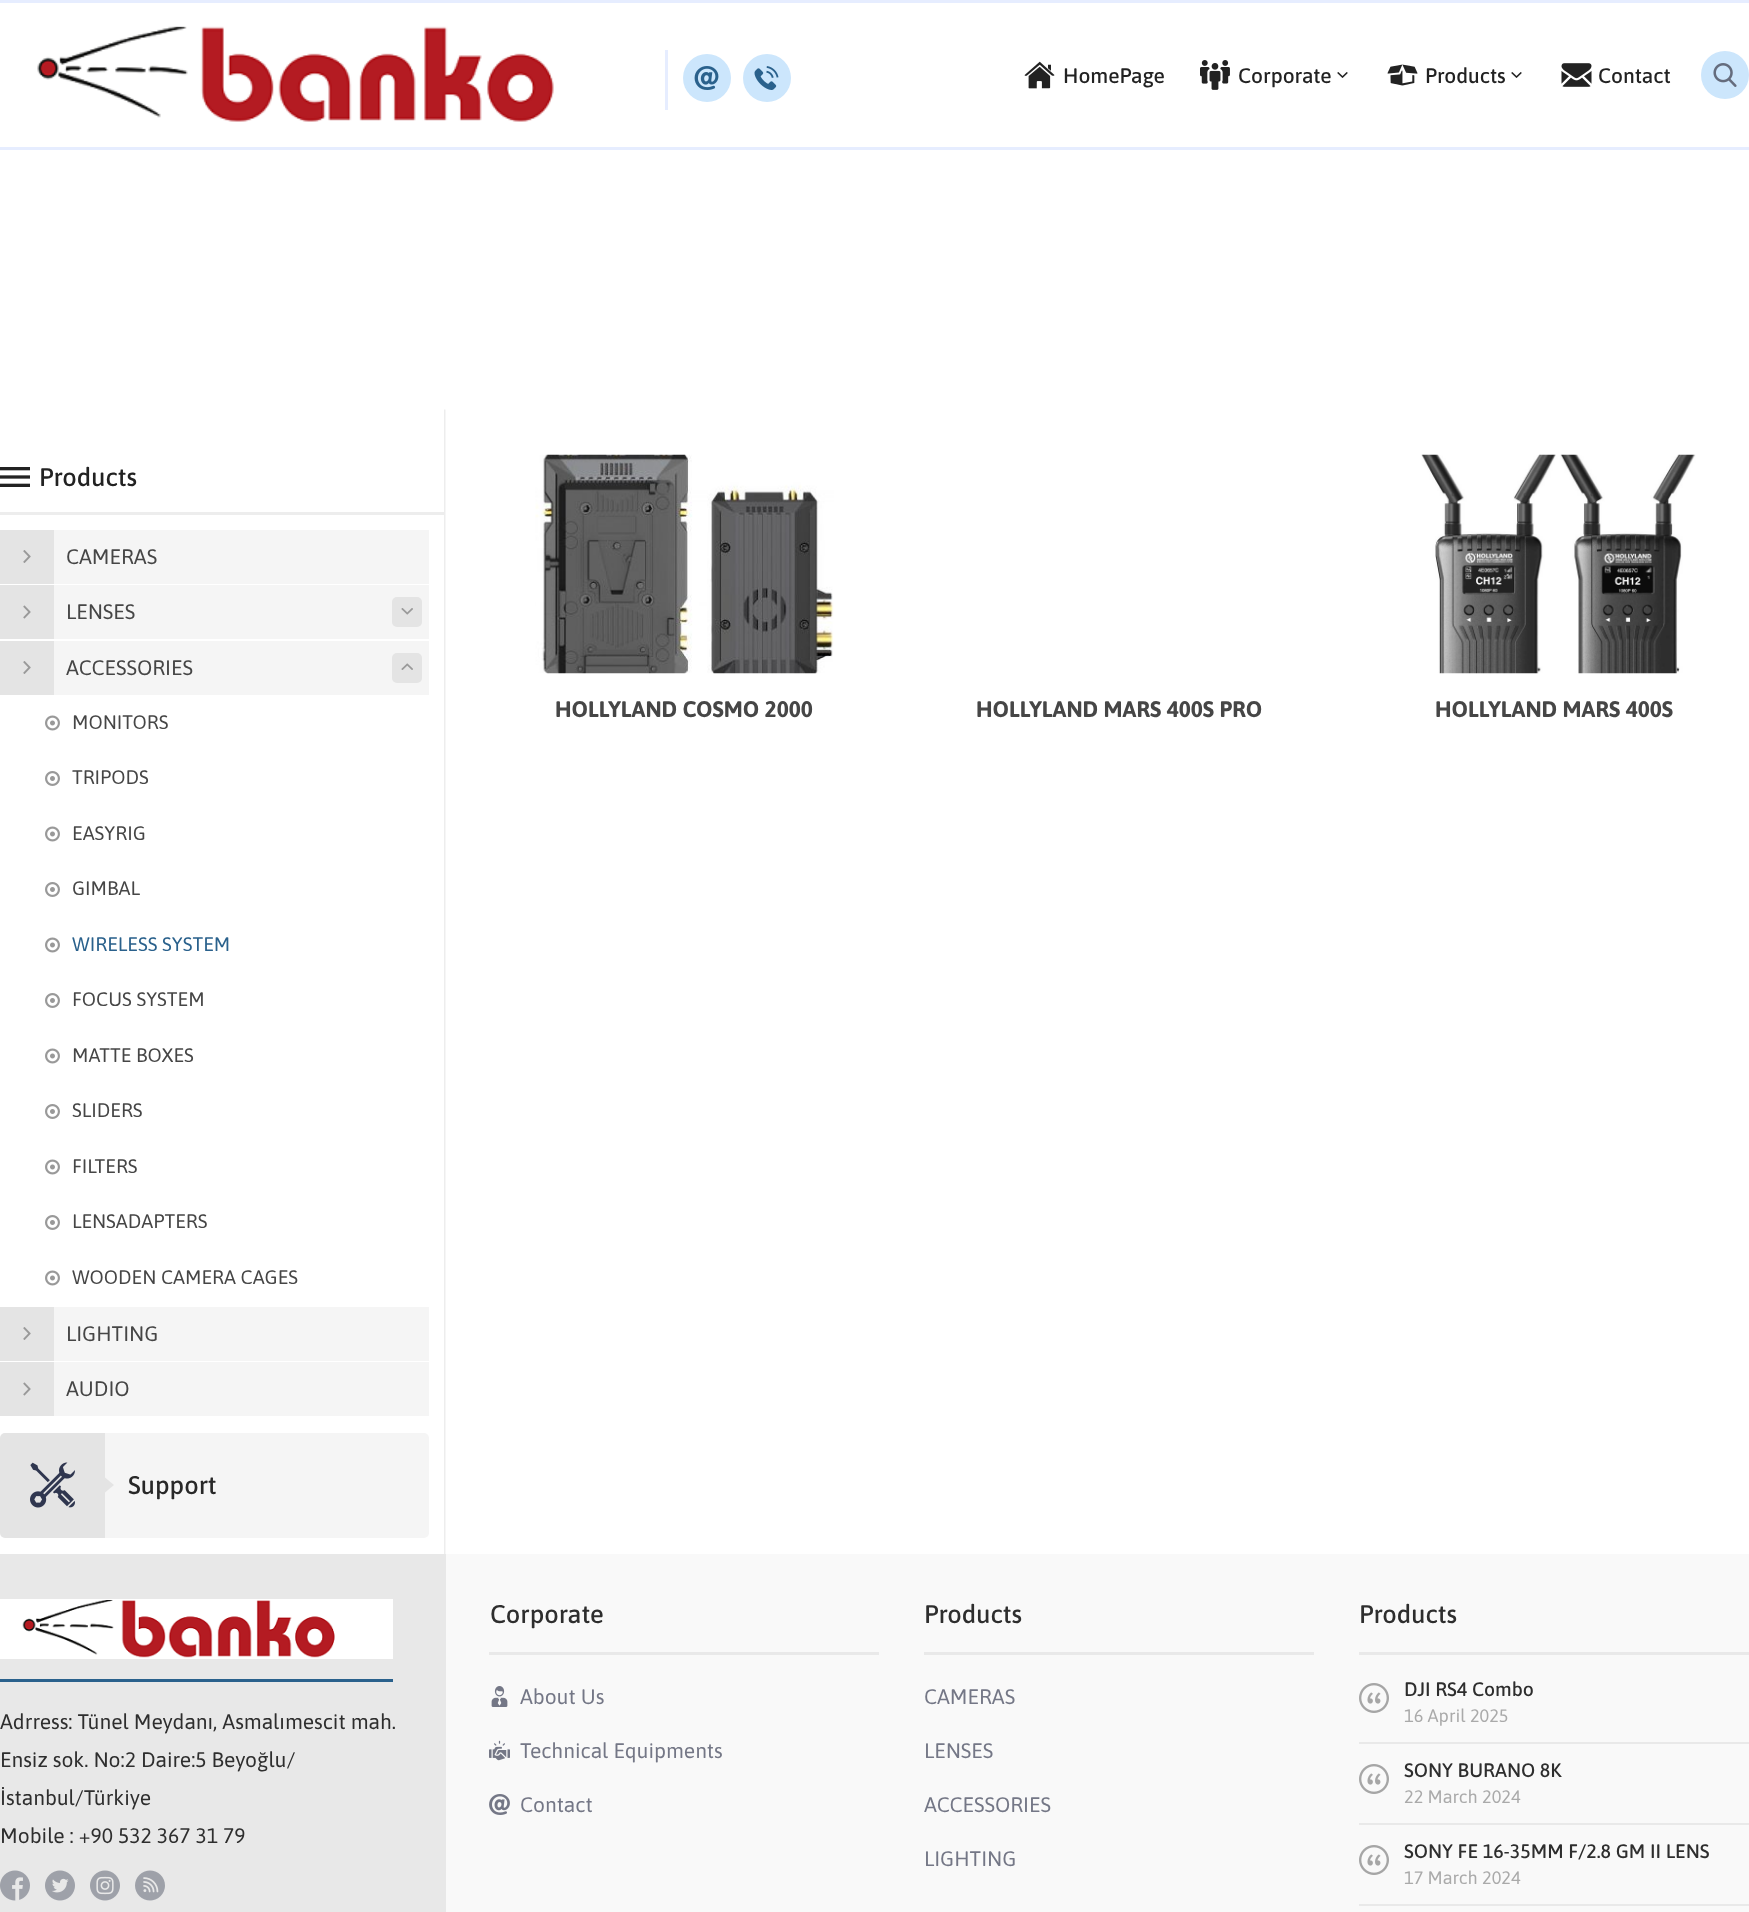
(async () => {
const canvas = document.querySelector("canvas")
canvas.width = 1749
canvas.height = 1912
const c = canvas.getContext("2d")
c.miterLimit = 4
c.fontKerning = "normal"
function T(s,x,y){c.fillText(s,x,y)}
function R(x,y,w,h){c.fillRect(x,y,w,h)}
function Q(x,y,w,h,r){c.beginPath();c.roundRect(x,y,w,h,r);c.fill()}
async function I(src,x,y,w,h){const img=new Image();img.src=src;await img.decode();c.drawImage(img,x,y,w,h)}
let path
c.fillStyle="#fff"
R(0,0,1749,1912)
c.fillStyle="#e6edff"
R(0,0,1749,3)
R(0,147,1749,3)
await I("1.png",37,26,517,96)
R(665,50,3,60)
c.fillStyle="#cce6fc"
c.beginPath()
c.arc(707,78,24,0,7)
c.fill()
await I("2.png",694,66,25,24)
c.beginPath()
c.arc(767,78,24,0,7)
c.fill()
await I("3.png",754,66,25,24)
await I("4.png",1024,61,31,28)
c.font="500 21px Asap"
c.fillStyle="#222"
T("HomePage",1063,83)
await I("5.png",1200,60,30,30)
T("Corporate",1238,83)
await I("6.png",1337,72,11,6)
await I("7.png",1387,64,31,22)
T("Products",1425,83)
await I("6.png",1511,72,11,6)
await I("8.png",1561,63,31,24)
T("Contact",1598,83)
c.fillStyle="#cce6fc"
c.beginPath()
c.arc(1725,75,24,0,7)
c.fill()
await I("9.png",1713,63,24,24)
await I("10.png",444,409,2,1145)
await I("11.png",0,467,30,20)
c.font="500 25.5px Asap"
c.fillStyle="#222"
T("Products",39,486)
c.fillStyle="#ededed"
R(0,512,444,3)
c.fillStyle="#f5f5f5"
R(54,530,375,54)
c.fillStyle="#e4e4e4"
R(0,530,54,54)
await I("12.png",23,550,8,13)
c.font="21px Asap"
c.fillStyle="#464646"
T("CAMERAS",66,564)
c.fillStyle="#f5f5f5"
R(54,585,375,54)
c.fillStyle="#e4e4e4"
R(0,585,54,54)
await I("13.png",23,605,8,14)
c.fillStyle="#464646"
T("LENSES",66,619)
c.fillStyle="#e4e4e4"
Q(392,597,30,30,5)
await I("14.png",401,608,12,7)
c.fillStyle="#f5f5f5"
R(54,641,375,54)
c.fillStyle="#e4e4e4"
R(0,641,54,54)
await I("12.png",23,661,8,13)
c.fillStyle="#464646"
T("ACCESSORIES",66,675)
c.fillStyle="#e4e4e4"
Q(392,653,30,30,5)
await I("15.png",401,663,12,7)
await I("16.png",45,715,15,16)
c.font="19.5px Asap"
c.fillStyle="#464646"
T("MONITORS",72,729)
await I("17.png",45,771,15,15)
T("TRIPODS",72,784)
await I("16.png",45,826,15,16)
T("EASYRIG",72,840)
await I("17.png",45,882,15,15)
T("GIMBAL",72,895)
await I("16.png",45,937,15,16)
c.fillStyle="#2a618c"
T("WIRELESS SYSTEM",72,951)
await I("17.png",45,993,15,15)
c.fillStyle="#464646"
T("FOCUS SYSTEM",72,1006)
await I("16.png",45,1048,15,16)
T("MATTE BOXES",72,1062)
await I("17.png",45,1104,15,15)
T("SLIDERS",72,1117)
await I("16.png",45,1159,15,16)
T("FILTERS",72,1173)
await I("17.png",45,1215,15,15)
T("LENSADAPTERS",72,1228)
await I("16.png",45,1270,15,16)
T("WOODEN CAMERA CAGES",72,1284)
c.fillStyle="#f5f5f5"
R(54,1307,375,54)
c.fillStyle="#e4e4e4"
R(0,1307,54,54)
await I("12.png",23,1327,8,13)
c.font="21px Asap"
c.fillStyle="#464646"
T("LIGHTING",66,1341)
c.fillStyle="#f5f5f5"
R(54,1362,375,54)
c.fillStyle="#e4e4e4"
R(0,1362,54,54)
await I("13.png",23,1382,8,14)
c.fillStyle="#464646"
T("AUDIO",66,1396)
c.fillStyle="#e4e4e4"
c.beginPath()
c.roundRect(0,1433,105,105,[5,0,0,5])
c.fill()
c.fillStyle="#f5f5f5"
c.beginPath()
c.roundRect(105,1433,324,105,[0,5,5,0])
c.fill()
await I("18.png",30,1462,45,46)
c.fillStyle="#e4e4e4"
path = new Path2D("M105 1492.5v-15l9 7.5z")
c.fill(path)
c.font="500 25.5px Asap"
c.fillStyle="#282828"
T("Support",128,1494)
await I("19.png",535,454,299,220)
c.font="bold 22.5px Asap"
c.fillStyle="#464646"
T("HOLLYLAND COSMO 2000",555,717)
T("HOLLYLAND MARS 400S PRO",976,717)
await I("20.png",1421,454,275,220)
T("HOLLYLAND MARS 400S",1435,717)
c.fillStyle="#e8e8e8"
R(0,1554,446,358)
c.fillStyle="#f9f9f9"
R(446,1554,1303,358)
await I("21.png",0,1599,393,60)
c.fillStyle="#2a618c"
R(0,1679,393,3)
c.font="21px Asap"
c.fillStyle="#2e2e2e"
T("Adrress: Tünel Meydanı, Asmalımescit mah.",0,1729)
T("Ensiz sok. No:2 Daire:5 Beyoğlu/",0,1767)
T("İstanbul/Türkiye",0,1805)
T("Mobile : +90 532 367 31 79",0,1843)
await I("22.png",0,1870,30,31)
await I("23.png",45,1870,30,31)
await I("24.png",90,1870,30,31)
await I("25.png",135,1870,30,31)
c.fillStyle="#e9e9e9"
R(489,1652,390,3)
c.font="500 25.5px Asap"
c.fillStyle="#2e2e2e"
T("Corporate",490,1623)
await I("26.png",491,1686,17,21)
c.font="21px Asap"
c.fillStyle="#747786"
T("About Us",520,1704)
await I("27.png",489,1740,21,21)
T("Technical Equipments",520,1758)
await I("28.png",489,1794,21,21)
T("Contact",520,1812)
c.fillStyle="#e9e9e9"
R(924,1652,390,3)
c.font="500 25.5px Asap"
c.fillStyle="#2e2e2e"
T("Products",924,1623)
c.font="21px Asap"
c.fillStyle="#747786"
T("CAMERAS",924,1704)
T("LENSES",924,1758)
T("ACCESSORIES",924,1812)
T("LIGHTING",924,1866)
c.fillStyle="#e9e9e9"
R(1359,1652,390,3)
c.font="500 25.5px Asap"
c.fillStyle="#2e2e2e"
T("Products",1359,1623)
await I("29.png",1359,1683,30,30)
c.font="500 19.5px Asap"
T("DJI RS4 Combo",1404,1696)
c.font="18px Asap"
c.fillStyle="#aaa"
T("16 April 2025",1404,1722)
c.fillStyle="#e9e9e9"
R(1359,1742,390,2)
await I("29.png",1359,1764,30,30)
c.font="500 19.5px Asap"
c.fillStyle="#2e2e2e"
T("SONY BURANO 8K",1404,1777)
c.font="18px Asap"
c.fillStyle="#aaa"
T("22 March 2024",1404,1803)
c.fillStyle="#e9e9e9"
R(1359,1823,390,2)
await I("29.png",1359,1845,30,30)
c.font="500 19.5px Asap"
c.fillStyle="#2e2e2e"
T("SONY FE 16-35MM F/2.8 GM II LENS",1404,1858)
c.font="18px Asap"
c.fillStyle="#aaa"
T("17 March 2024",1404,1884)
c.fillStyle="#e9e9e9"
R(1359,1904,390,2)
})()
